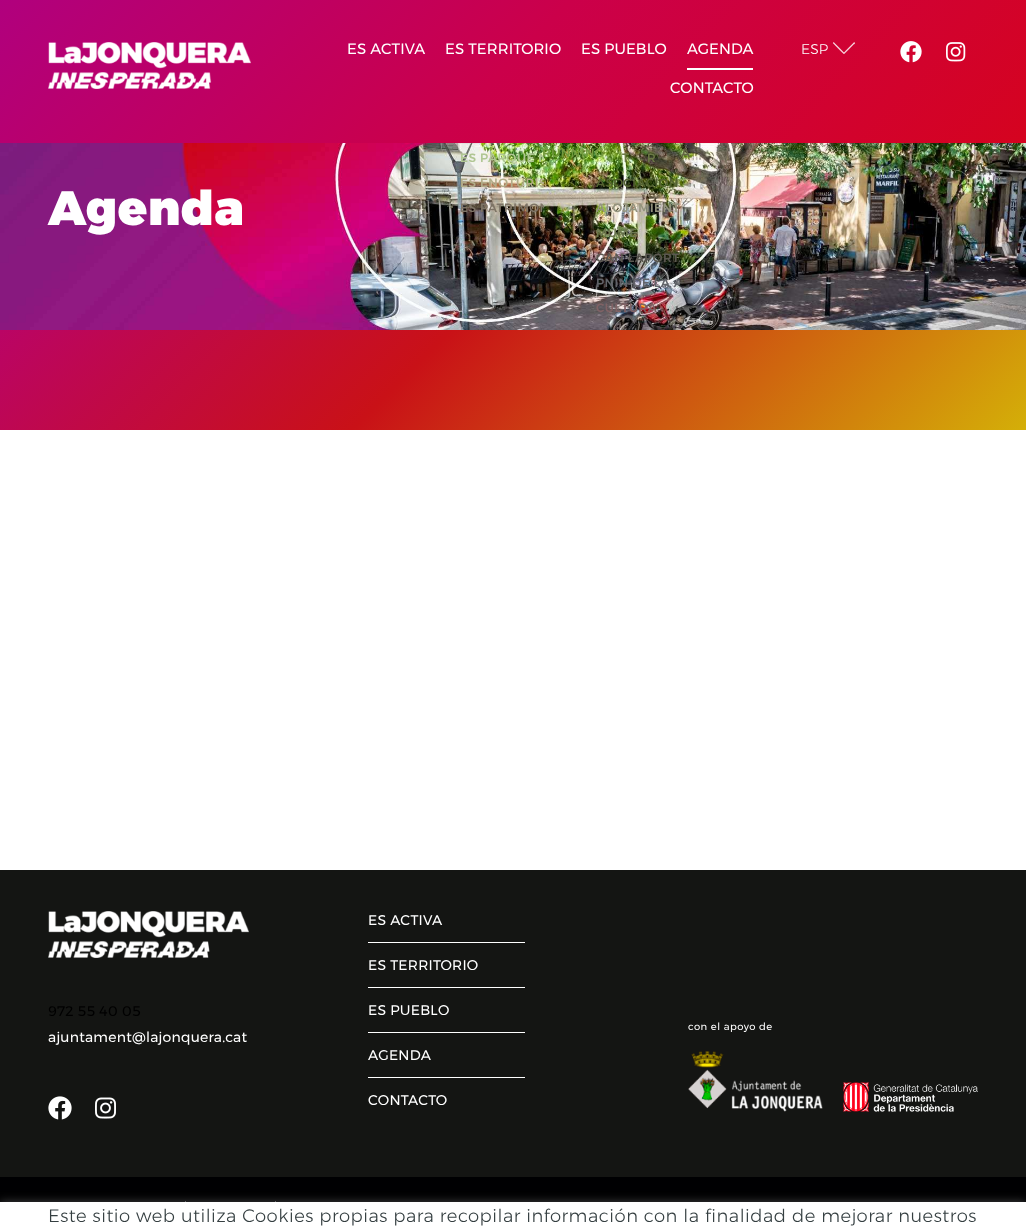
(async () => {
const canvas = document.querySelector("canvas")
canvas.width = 1026
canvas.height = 1226
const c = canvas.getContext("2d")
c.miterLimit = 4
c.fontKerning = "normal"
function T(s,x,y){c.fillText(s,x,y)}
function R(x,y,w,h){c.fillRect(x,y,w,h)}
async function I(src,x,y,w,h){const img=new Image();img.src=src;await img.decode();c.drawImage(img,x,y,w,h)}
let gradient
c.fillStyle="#fff"
R(0,0,1026,1226)
await I("1.png",0,143,1026,187)
c.letterSpacing="0.5px"
c.font="900 48px Montserrat"
T("Agenda",48,225)
gradient = c.createLinearGradient(231,99,795,662)
gradient.addColorStop(0,"#ba0465")
gradient.addColorStop(.4,"#c91117")
gradient.addColorStop(1,"#d4af08")
c.fillStyle = gradient
R(0,330,1026,100)
gradient = c.createLinearGradient(214,-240,812,357)
gradient.addColorStop(0,"#af0080")
gradient.addColorStop(.5,"#cb004a")
gradient.addColorStop(1,"#d5031f")
c.fillStyle = gradient
R(0,0,1026,143)
await I("2.png",48,42,203,47)
c.letterSpacing="0.1px"
c.font="15px Montserrat"
c.fillStyle="#fff"
T("ES ACTIVA",347,54)
c.letterSpacing="0.5px"
c.font="500 12px Montserrat"
c.fillStyle="#749b3f"
T("RUNNING",542,157)
c.fillStyle="#636543"
T("A",681,157)
c.letterSpacing="0.1px"
c.font="15px Montserrat"
c.fillStyle="#fff"
T("ES TERRITORIO",445,54)
c.save()
c.beginPath()
c.rect(445,107,99,126)
c.clip()
c.letterSpacing="0.5px"
c.font="500 12px Montserrat"
c.fillStyle="#b0c693"
T("ES PARQUE N",460,162)
c.fillStyle="#b2ac88"
T("ES ENOTURIS",460,187)
c.fillStyle="#7e7466"
T("ES PATRIMON",460,212)
c.restore()
T("ES PUEBLO",581,54)
c.letterSpacing="0.5px"
c.font="500 12px Montserrat"
c.fillStyle="#6a7845"
T("T",622,162)
T("R",647,162)
c.fillStyle="#536231"
T("ASOCIACION",596,187)
c.fillStyle="#94947e"
T("ALOJAMIENT",596,212)
c.fillStyle="#6c784f"
T("MUME",596,237)
c.save()
c.beginPath()
c.rect(581,107,99,226)
c.clip()
c.fillStyle="#5b5851"
T("CAN LAPORTA",596,262)
c.fillStyle="#616369"
T("PNIN DE LA A",596,287)
c.restore()
c.fillStyle="#806265"
T("CULTURA",596,312)
c.letterSpacing="0.1px"
c.font="15px Montserrat"
c.fillStyle="#fff"
T("AGENDA",687,54)
R(687,68,66,2)
T("CONTACTO",670,93)
c.font="300 14px Montserrat"
T("ESP",801,54)
await I("3.png",833,42,22,12)
await I("4.png",900,41,22,22)
await I("5.png",946,42,20,20)
c.fillStyle="#141513"
R(0,870,1026,307)
await I("6.png",48,911,201,47)
c.letterSpacing="0.25px"
c.font="14px Montserrat"
c.fillStyle="#000"
T("972 55 40 05",48,1016)
c.fillStyle="#fff"
T("ajuntament@lajonquera.cat",48,1042)
await I("7.png",48,1096,24,24)
await I("8.png",95,1097,21,22)
R(368,942,157,1)
T("ES ACTIVA",368,925)
R(368,987,157,1)
T("ES TERRITORIO",368,970)
R(368,1032,157,1)
T("ES PUEBLO",368,1015)
R(368,1077,157,1)
T("AGENDA",368,1060)
T("CONTACTO",368,1105)
c.letterSpacing="0.5px"
c.font="10px Montserrat"
T("con el apoyo de",688,1030)
await I("9.png",688,1051,135,61)
await I("10.png",843,1082,135,30)
c.fillStyle="#000002"
R(0,1177,1026,25)
c.fillStyle="#8b8b8b"
R(185,1201,1,1)
R(275,1201,1,1)
c.fillStyle="#444"
c.filter="blur(5px)"
c.beginPath()
c.rect(0,1202,1026,24)
c.fill()
c.filter="none"
c.fillStyle="#fff"
R(0,1202,1026,24)
c.font="300 18px Montserrat"
c.fillStyle="#353f41"
T("Este sitio web utiliza Cookies propias para recopilar información con la finalidad de mejorar nuestros",48,1222)
})()
